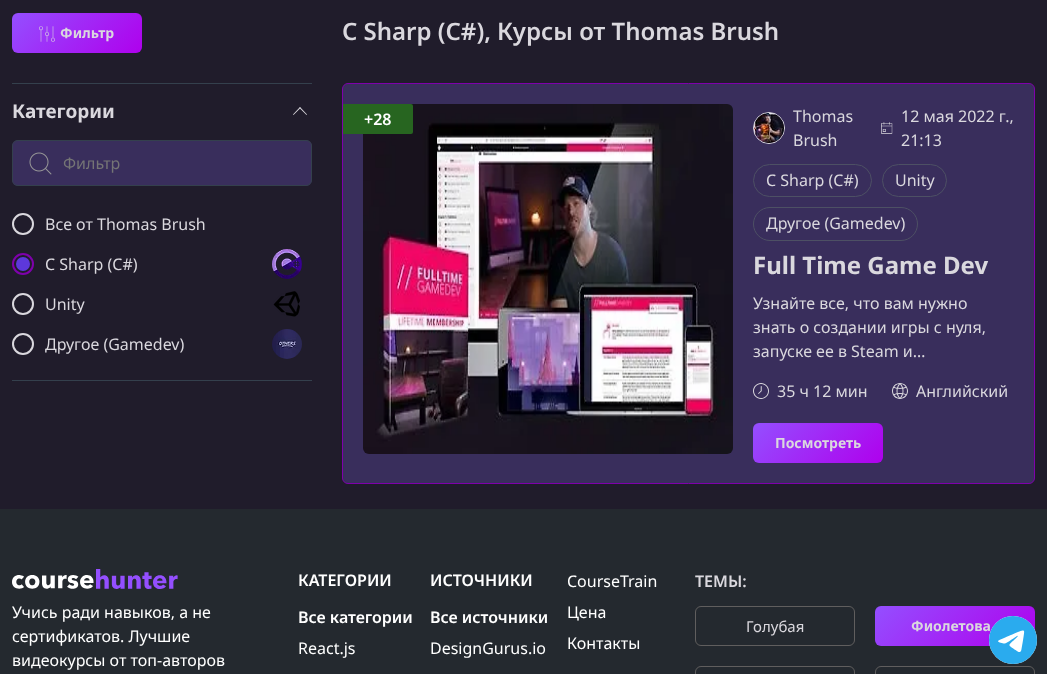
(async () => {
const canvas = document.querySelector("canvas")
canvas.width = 1047
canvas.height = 674
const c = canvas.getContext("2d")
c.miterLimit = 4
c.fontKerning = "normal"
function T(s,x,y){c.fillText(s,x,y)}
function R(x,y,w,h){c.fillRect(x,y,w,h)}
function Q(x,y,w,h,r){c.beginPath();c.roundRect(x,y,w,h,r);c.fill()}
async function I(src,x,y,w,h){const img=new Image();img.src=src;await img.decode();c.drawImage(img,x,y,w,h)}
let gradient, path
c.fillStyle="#201c2b"
R(0,0,1047,674)
gradient = c.createLinearGradient(33,-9,121,75)
gradient.addColorStop(0,"#944fff")
gradient.addColorStop(1,"#af00ed")
c.fillStyle = gradient
Q(12,13,130,40,6)
await I("1.png",39,26,16,16)
c.font="bold 14px Noto Sans"
c.fillStyle="#dad8de"
T("Фильтр",60,38)
c.font="600 24px Noto Sans"
T("C Sharp (C#), Курсы от Thomas Brush",342,40)
c.fillStyle="#34404d"
R(12,83,300,1)
R(12,380,300,1)
c.font="bold 19px Noto Sans"
c.fillStyle="#dad8de"
T("Категории",12,118)
path = new Path2D("M300.5 108l-7 7l-.5-.5l7-7.5z")
c.fill(path)
path = new Path2D("M306.5 115l-7-7l.5-1l7 7.5z")
c.fill(path)
c.fillStyle="#392e5c"
Q(12,140,300,46,6)
await I("2.png",29,152,23,23)
c.beginPath()
c.roundRect(12.5,140.5,299,45,5.5)
c.strokeStyle="#34404d"
c.stroke()
c.font="16px Noto Sans"
c.fillStyle="#757575"
T("Фильтр",63,169)
c.beginPath()
c.arc(23,224,10,0,7)
c.strokeStyle="#dad8de"
c.lineWidth=2
c.stroke()
c.fillStyle="#dad8de"
T("Все от Thomas Brush",45,230)
c.beginPath()
c.arc(23,264,10,0,7)
c.strokeStyle="#7f00ac"
c.stroke()
await I("3.png",272,249,30,30)
c.fillStyle="#5d38db"
c.beginPath()
c.arc(23,264,7,0,7)
c.fill()
c.fillStyle="#dad8de"
T("C Sharp (C#)",45,270)
c.beginPath()
c.arc(23,304,10,0,7)
c.strokeStyle="#dad8de"
c.stroke()
T("Unity",45,310)
await I("4.png",273,291,27,26)
c.beginPath()
c.arc(23,344,10,0,7)
c.stroke()
T("Другое (Gamedev)",45,350)
await I("5.png",272,329,30,30)
c.fillStyle="#392e5c"
c.beginPath()
c.roundRect(342.5,83.5,692,400,5.5)
c.fill()
c.strokeStyle="#7f00ac"
c.lineWidth=1
c.stroke()
await I("6.png",363,104,370,350)
c.beginPath()
c.arc(769,128,15.5,0,7)
c.strokeStyle="#dad8de"
c.stroke()
await I("7.png",754,113,30,30)
c.fillStyle="#dad8de"
T("Thomas",793,122)
T("Brush",793,146)
T("12 мая 2022 г.,",901,122)
await I("8.png",881,122,12,12)
T("21:13",901,146)
c.beginPath()
c.roundRect(753.5,164.5,118,32,16)
c.strokeStyle="#4d5064"
c.stroke()
T("C Sharp (C#)",766,186)
c.beginPath()
c.roundRect(882.5,164.5,64,32,16)
c.stroke()
T("Unity",895,186)
c.beginPath()
c.roundRect(753.5,207.5,164,33,16.5)
c.stroke()
T("Другое (Gamedev)",766,229)
c.font="bold 24px Noto Sans"
T("Full Time Game Dev",753,274)
c.font="16px Noto Sans"
T("Узнайте все, что вам нужно",753,309)
T("знать о создании игры с нуля,",753,333)
T("запуске ее в Steam и…",753,357)
await I("9.png",753,383,16,16)
T("35 ч 12 мин",777,397)
await I("10.png",892,383,16,16)
T("Английский",916,397)
gradient = c.createLinearGradient(774,401,862,485)
gradient.addColorStop(0,"#944fff")
gradient.addColorStop(1,"#af00ed")
c.fillStyle = gradient
Q(753,423,130,40,6)
c.font="bold 14px Noto Sans"
c.fillStyle="#dad8de"
T("Посмотреть",775,448)
c.fillStyle="#276520"
c.beginPath()
c.roundRect(343,104,70,30,[0,2,2,0])
c.fill()
c.font="600 16px Noto Sans"
c.fillStyle="#fff"
T("+28",364,125)
c.fillStyle="#24292f"
R(0,509,1047,165)
await I("11.png",12,569,166,20)
c.font="16px Noto Sans"
c.fillStyle="#fff"
T("Учись ради навыков, а не",12,618)
T("сертификатов. Лучшие",12,642)
T("видеокурсы от топ-авторов",12,666)
c.font="600 16px Noto Sans"
T("КАТЕГОРИИ",298,586)
T("Все категории",298,623)
c.font="16px Noto Sans"
T("React.js",298,654)
c.font="600 16px Noto Sans"
T("ИСТОЧНИКИ",430,586)
T("Все источники",430,623)
c.font="16px Noto Sans"
T("DesignGurus.io",430,654)
T("CourseTrain",567,587)
T("Цена",567,618)
T("Контакты",567,649)
c.font="600 16px Noto Sans"
c.fillStyle="#dad8de"
T("ТЕМЫ:",695,587)
c.beginPath()
c.roundRect(695.5,606.5,159,39,5.5)
c.strokeStyle="#605e5e"
c.stroke()
c.font="15px Noto Sans"
T("Голубая",746,632)
gradient = c.createLinearGradient(904,576,1006,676)
gradient.addColorStop(0,"#944fff")
gradient.addColorStop(1,"#af00ed")
c.fillStyle = gradient
Q(875,606,160,40,6)
c.font="bold 14px Noto Sans"
c.fillStyle="#dad8de"
T("Фиолетова",911,631)
c.beginPath()
c.roundRect(695.5,666.5,159,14,5.5)
c.stroke()
c.beginPath()
c.roundRect(875.5,666.5,159,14,5.5)
c.stroke()
c.fillStyle="#fff"
c.beginPath()
c.arc(1013,640,24,0,7)
c.fill()
await I("12.png",989,616,48,48)
})()
